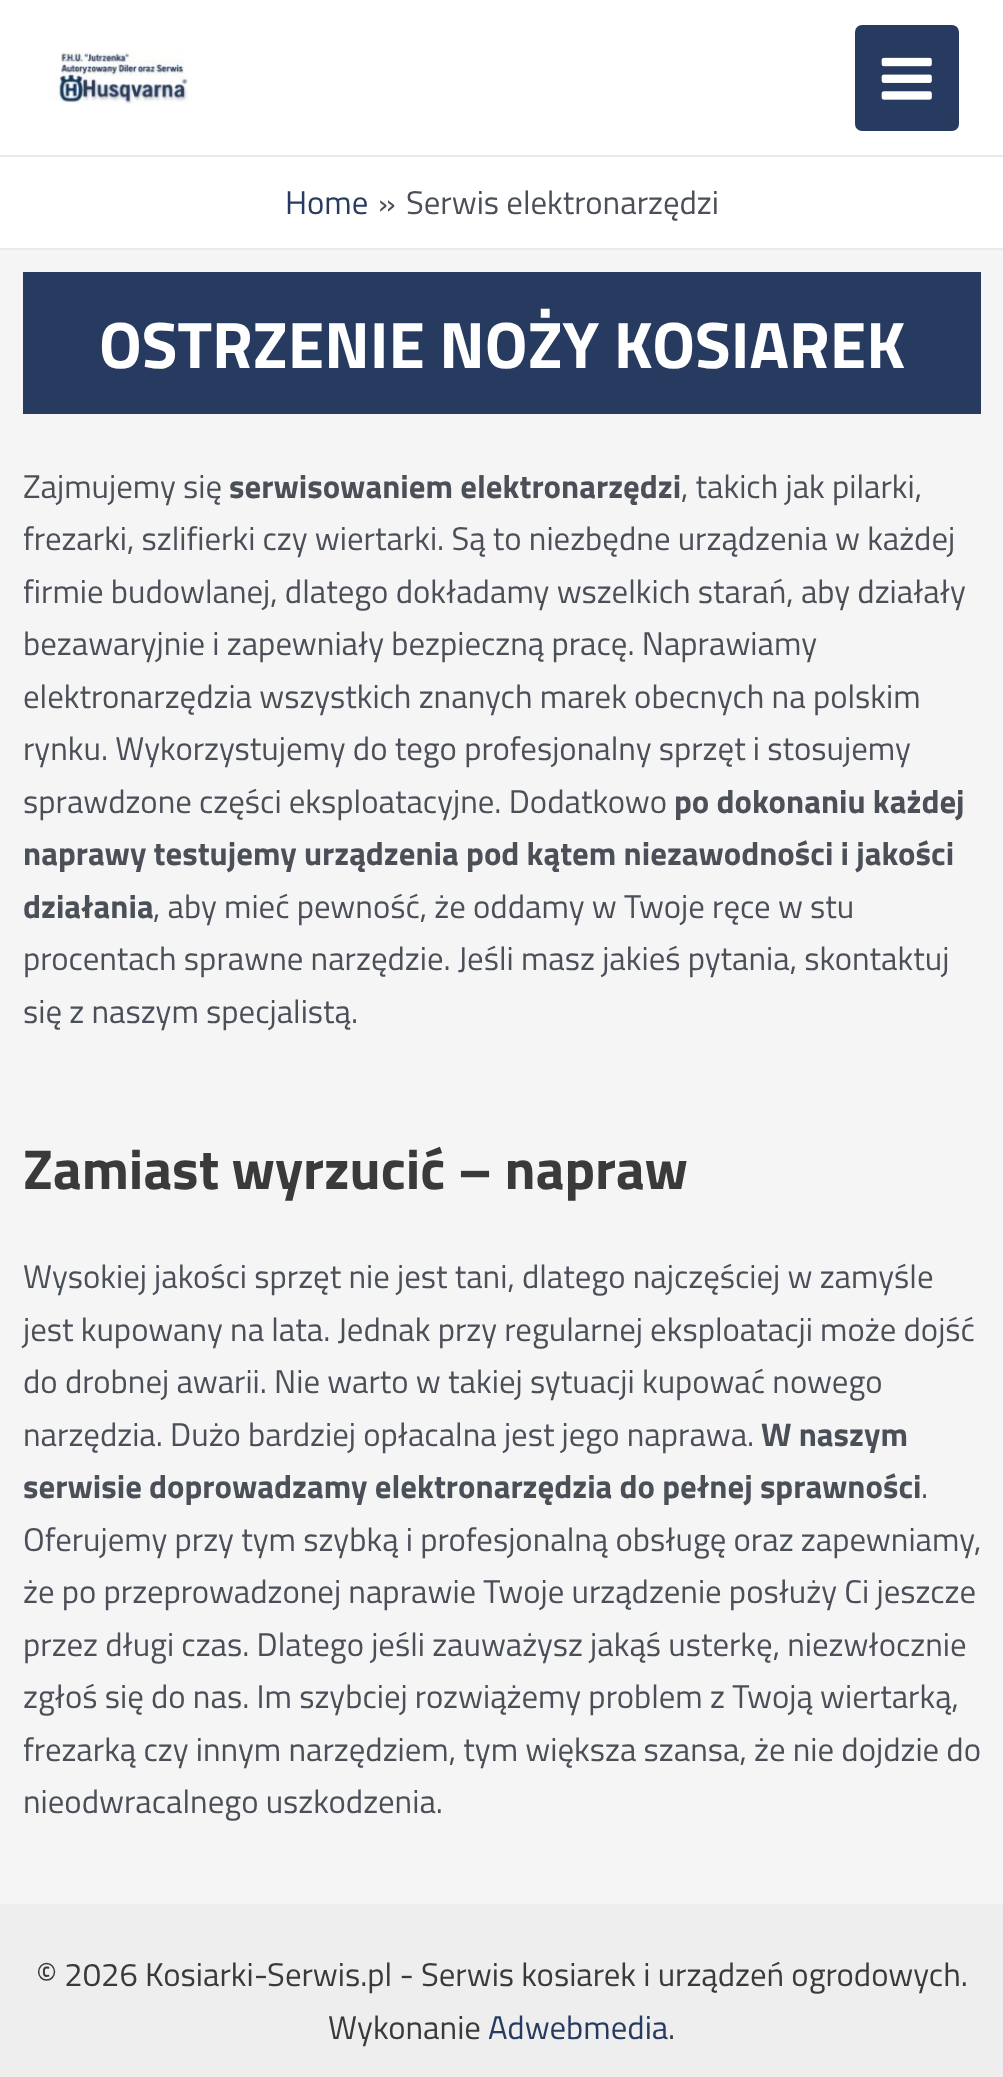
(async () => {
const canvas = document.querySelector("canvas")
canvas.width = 1003
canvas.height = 2077
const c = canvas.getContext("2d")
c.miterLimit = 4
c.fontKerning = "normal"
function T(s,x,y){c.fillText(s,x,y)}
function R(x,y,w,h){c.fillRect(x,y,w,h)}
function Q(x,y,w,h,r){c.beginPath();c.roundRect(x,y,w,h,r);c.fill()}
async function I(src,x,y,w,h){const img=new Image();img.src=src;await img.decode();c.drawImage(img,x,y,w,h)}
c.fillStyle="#f5f5f5"
R(0,0,1003,2077)
c.fillStyle="#fff"
R(0,0,1003,248)
c.fillStyle="#eaeaea"
R(0,155,1003,2)
await I("1.png",45,51,147,53)
c.fillStyle="#273a60"
Q(855,25,104,106,7)
await I("2.png",881,57,51,43)
c.fillStyle="#eaeaea"
R(0,248,1003,2)
c.font="32.8px Titillium Web"
c.fillStyle="#273a60"
T("Home",285,214)
c.fillStyle="#4b4f58"
T("»",378,214)
T("Serwis elektronarzędzi",406,214)
c.fillStyle="#273a60"
R(23,272,958,142)
c.font="bold 65.7px Titillium Web"
c.fillStyle="#fff"
T("OSTRZENIE NOŻY KOSIAREK",99,368)
c.font="32.8px Titillium Web"
c.fillStyle="#4b4f58"
T("Zajmujemy się",23,498)
c.font="bold 32.8px Titillium Web"
T("serwisowaniem elektronarzędzi",229,498)
c.font="32.8px Titillium Web"
T(", takich jak pilarki,",681,498)
T("frezarki, szlifierki czy wiertarki. Są to niezbędne urządzenia w każdej",23,550)
T("firmie budowlanej, dlatego dokładamy wszelkich starań, aby działały",23,603)
T("bezawaryjnie i zapewniały bezpieczną pracę. Naprawiamy",23,655)
T("elektronarzędzia wszystkich znanych marek obecnych na polskim",23,708)
T("rynku. Wykorzystujemy do tego profesjonalny sprzęt i stosujemy",23,760)
T("sprawdzone części eksploatacyjne. Dodatkowo",23,813)
c.font="bold 32.8px Titillium Web"
T("po dokonaniu każdej",674,813)
T("naprawy testujemy urządzenia pod kątem niezawodności i jakości",23,865)
T("działania",23,918)
c.font="32.8px Titillium Web"
T(", aby mieć pewność, że oddamy w Twoje ręce w stu",153,918)
T("procentach sprawne narzędzie. Jeśli masz jakieś pytania, skontaktuj",23,970)
T("się z naszym specjalistą.",23,1023)
c.font="bold 56.25px Titillium Web"
c.fillStyle="#3a3a3a"
T("Zamiast wyrzucić – napraw",23,1189)
c.font="32.8px Titillium Web"
c.fillStyle="#4b4f58"
T("Wysokiej jakości sprzęt nie jest tani, dlatego najczęściej w zamyśle",23,1288)
T("jest kupowany na lata. Jednak przy regularnej eksploatacji może dojść",23,1341)
T("do drobnej awarii. Nie warto w takiej sytuacji kupować nowego",23,1393)
T("narzędzia. Dużo bardziej opłacalna jest jego naprawa.",23,1446)
c.font="bold 32.8px Titillium Web"
T("W naszym",761,1446)
T("serwisie doprowadzamy elektronarzędzia do pełnej sprawności",23,1498)
c.font="32.8px Titillium Web"
T(".",921,1498)
T("Oferujemy przy tym szybką i profesjonalną obsługę oraz zapewniamy,",23,1551)
T("że po przeprowadzonej naprawie Twoje urządzenie posłuży Ci jeszcze",23,1603)
T("przez długi czas. Dlatego jeśli zauważysz jakąś usterkę, niezwłocznie",23,1656)
T("zgłoś się do nas. Im szybciej rozwiążemy problem z Twoją wiertarką,",23,1708)
T("frezarką czy innym narzędziem, tym większa szansa, że nie dojdzie do",23,1761)
T("nieodwracalnego uszkodzenia.",23,1813)
c.fillStyle="#eee"
R(0,1904,1003,173)
c.fillStyle="#3a3a3a"
T("© 2026 Kosiarki-Serwis.pl - Serwis kosiarek i urządzeń ogrodowych.",36,1986)
T("Wykonanie",328,2039)
c.fillStyle="#273a60"
T("Adwebmedia",488,2039)
c.fillStyle="#3a3a3a"
T(".",668,2039)
})()
